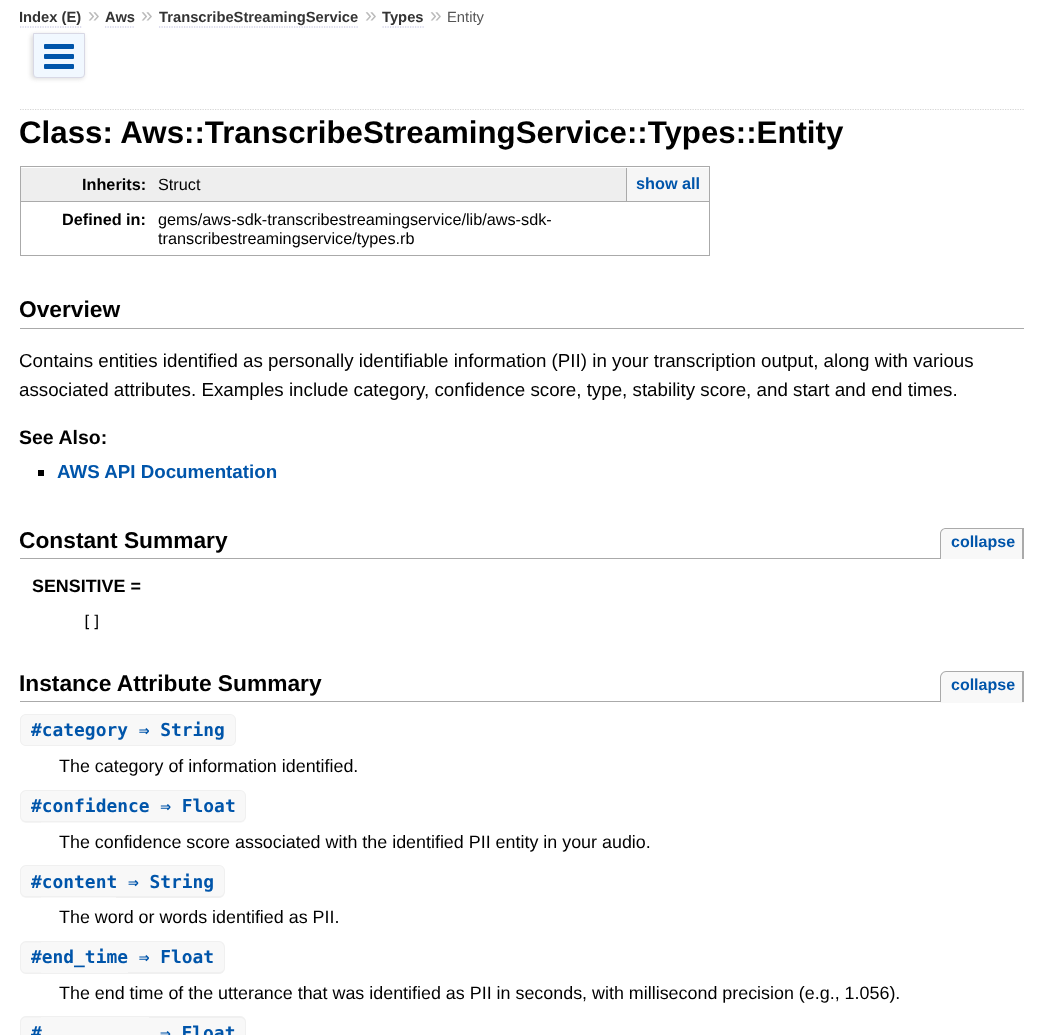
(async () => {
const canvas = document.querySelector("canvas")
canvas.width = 1043
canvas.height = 1035
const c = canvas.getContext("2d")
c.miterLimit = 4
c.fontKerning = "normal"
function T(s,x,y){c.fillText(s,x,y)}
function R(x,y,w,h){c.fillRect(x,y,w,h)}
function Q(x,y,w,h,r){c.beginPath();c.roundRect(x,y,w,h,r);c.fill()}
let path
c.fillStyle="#fff"
R(0,0,1043,1035)
c.font="bold 14.75px Liberation Sans"
c.fillStyle="#333"
T("Index (E)",19,22)
c.fillStyle="#ddd"
c.filter="blur(2px)"
c.beginPath()
c.roundRect(31,34,53,45,4)
c.fill()
c.filter="none"
path = new Path2D("M20 27h62.5")
c.strokeStyle="#bbd"
c.lineWidth=1.2
c.setLineDash([1.25,1.25])
c.stroke(path)
c.font="21px Liberation Sans"
c.fillStyle="#bbb"
T("»",88,22)
c.font="bold 14.75px Liberation Sans"
c.fillStyle="#333"
T("Aws",105,22)
path = new Path2D("M105 27h30")
c.stroke(path)
c.font="21px Liberation Sans"
c.fillStyle="#bbb"
T("»",141,22)
c.font="bold 14.75px Liberation Sans"
c.fillStyle="#333"
T("TranscribeStreamingService",159,22)
path = new Path2D("M159 27h200")
c.stroke(path)
c.font="21px Liberation Sans"
c.fillStyle="#bbb"
T("»",365,22)
c.font="bold 14.75px Liberation Sans"
c.fillStyle="#333"
T("Types",382,22)
path = new Path2D("M382.5 27h41.5")
c.stroke(path)
c.font="21px Liberation Sans"
c.fillStyle="#bbb"
T("»",430,22)
c.font="14.75px Liberation Sans"
c.fillStyle="#555"
T("Entity",447,22)
c.fillStyle="#f1f8ff"
c.beginPath()
c.roundRect(33.5,33.5,51,44,[0,0,3.5,3.5])
c.fill()
c.strokeStyle="#d8d8e5"
c.lineWidth=1
c.setLineDash([])
c.stroke()
c.fillStyle="#05a"
Q(44,44,30,5,1)
Q(44,54,30,5,1)
Q(44,64,30,5,1)
path = new Path2D("M20 109.5h1004")
c.strokeStyle="#d5d5d5"
c.lineWidth=1.2
c.setLineDash([1.25,1.25])
c.stroke(path)
c.font="bold 31.25px Liberation Sans"
c.fillStyle="#000"
T("Class: Aws::TranscribeStreamingService::Types::Entity",19,143)
c.fillStyle="#eee"
R(21,168,605,33)
c.fillStyle="#aaa"
R(20,166,690,1)
R(20,166,1,35)
c.font="bold 16.25px Liberation Sans"
c.fillStyle="#000"
T("Inherits:",82,190)
c.fillStyle="#aaa"
R(20,201,690,1)
R(709,166,1,90)
c.font="16.25px Liberation Sans"
c.fillStyle="#000"
T("Struct",158,190)
c.fillStyle="#f6f6f6"
R(627,168,82,33)
c.fillStyle="#aaa"
R(626,168,1,33)
c.font="bold 16.25px Liberation Sans"
c.fillStyle="#05a"
T("show all",636,189)
c.fillStyle="#aaa"
R(20,255,139,1)
R(20,201,1,55)
c.fillStyle="#000"
T("Defined in:",62,225)
c.fillStyle="#aaa"
R(159,255,551,1)
c.font="16.25px Liberation Sans"
c.fillStyle="#000"
T("gems/aws-sdk-transcribestreamingservice/lib/aws-sdk-",158,225)
T("transcribestreamingservice/types.rb",158,244)
c.fillStyle="#aaa"
R(20,328,1004,1)
c.font="bold 22.75px Liberation Sans"
c.fillStyle="#000"
T("Overview",19,317)
c.font="18.75px Liberation Sans"
T("Contains entities identified as personally identifiable information (PII) in your transcription output, along with various",19,367)
T("associated attributes. Examples include category, confidence score, type, stability score, and start and end times.",19,396)
c.font="bold 19.5px Liberation Sans"
T("See Also:",19,444)
R(38,470,6,6)
c.font="bold 18.75px Liberation Sans"
c.fillStyle="#05a"
T("AWS API Documentation",57,478)
c.fillStyle="#aaa"
R(20,558,920,1)
c.font="bold 22.75px Liberation Sans"
c.fillStyle="#000"
T("Constant Summary",19,548)
c.fillStyle="#f8f8f8"
c.beginPath()
c.roundRect(940,528,84,31,[6,0,0,0])
c.fill()
c.fillStyle="#aaa"
path = new Path2D("M946 528h78v31h-84v-25c0-4 3-6 6-6zm0 1h76v30h-81v-25c0-3 2-5 5-5z")
c.fill(path,"evenodd")
c.font="bold 16px Liberation Sans"
c.fillStyle="#05a"
T("collapse",951,547)
c.font="bold 17.9px Liberation Sans"
c.fillStyle="#000"
T("SENSITIVE =",32,592)
c.font="16.25px DejaVu Sans Mono"
T("[]",82,627)
c.fillStyle="#aaa"
R(20,701,920,1)
c.font="bold 22.75px Liberation Sans"
c.fillStyle="#000"
T("Instance Attribute Summary",19,691)
c.fillStyle="#f8f8f8"
c.beginPath()
c.roundRect(940,671,84,32,[6,0,0,0])
c.fill()
c.fillStyle="#aaa"
path = new Path2D("M946 671h78v31h-84v-24c0-4 3-7 6-7zm0 1h76v30h-81v-24c0-3 2-6 5-6z")
c.fill(path,"evenodd")
c.font="bold 16px Liberation Sans"
c.fillStyle="#05a"
T("collapse",951,690)
c.fillStyle="#f8f8f8"
c.beginPath()
c.roundRect(20,714,21,32,[6,0,0,6])
c.fill()
c.fillStyle="#f0f0f0"
path = new Path2D("M26 714h15v32h-15c-3 0-6-2.5-6-6v-20c0-3.5 3-6 6-6zm0 1h15v30h-15c-2.5 0-5-2-5-5v-20c0-3 2.5-5 5-5z")
c.fill(path,"evenodd")
c.fillStyle="#f8f8f8"
R(41,715,87,30)
c.beginPath()
c.roundRect(128,714,108,32,[0,6,6,0])
c.fill()
c.fillStyle="#f0f0f0"
path = new Path2D("M128 714h102c3 0 6 3 6 6v20c0 3-3 6-6 6h-102zm0 1h102c3 0 5 2 5 5v20c0 3-2 5-5 5h-102z")
c.fill(path,"evenodd")
c.font="bold 17.9px DejaVu Sans Mono"
c.fillStyle="#05a"
T("#category ⇒ String",31,736)
c.fillStyle="#f0f0f0"
R(41,714,87,1)
R(41,745,87,1)
c.font="17.9px Liberation Sans"
c.fillStyle="#000"
T("The category of information identified.",59,772)
c.fillStyle="#f8f8f8"
c.beginPath()
c.roundRect(20,790,21,33,[6,0,0,6])
c.fill()
c.fillStyle="#f0f0f0"
path = new Path2D("M26 790h15v32.5h-15c-3 0-6-3-6-6.5v-20c0-3 3-6 6-6zm0 1h15v30h-15c-2.5 0-5-2-5-5v-20c0-2.5 2.5-5 5-5z")
c.fill(path,"evenodd")
c.fillStyle="#f8f8f8"
R(41,791,108,32)
c.beginPath()
c.roundRect(149,790,97,33,[0,6,6,0])
c.fill()
c.fillStyle="#f0f0f0"
path = new Path2D("M149 790h91c3 0 6 3 6 6v20c0 4-3 6-6 6h-91zm0 1h91c3 0 5 2 5 5v20c0 3-2 5-5 5h-91z")
c.fill(path,"evenodd")
c.font="bold 17.9px DejaVu Sans Mono"
c.fillStyle="#05a"
T("#confidence ⇒ Float",31,812)
c.fillStyle="#f0f0f0"
R(41,790,108,1)
R(41,821,108,1)
c.font="17.9px Liberation Sans"
c.fillStyle="#000"
T("The confidence score associated with the identified PII entity in your audio.",59,848)
c.fillStyle="#f8f8f8"
c.beginPath()
c.roundRect(20,865,21,33,[6,0,0,6])
c.fill()
c.fillStyle="#f0f0f0"
path = new Path2D("M26 865h15v32.5h-15c-3 0-6-3-6-6.5v-20c0-3 3-6 6-6zm0 1h15v30h-15c-2.5 0-5-2-5-5v-20c0-2.5 2.5-5 5-5z")
c.fill(path,"evenodd")
c.fillStyle="#f8f8f8"
R(41,866,75,32)
c.beginPath()
c.roundRect(116,865,109,33,[0,6,6,0])
c.fill()
c.fillStyle="#f0f0f0"
path = new Path2D("M116 865h103c3 0 6 3 6 6v20c0 4-3 7-6 7h-103zm0 1h103c3 0 5 2 5 5v20c0 3-2 5-5 5h-103z")
c.fill(path,"evenodd")
c.font="bold 17.9px DejaVu Sans Mono"
c.fillStyle="#05a"
T("#content ⇒ String",31,888)
c.fillStyle="#f0f0f0"
R(41,865,75,1)
R(41,896,75,1)
c.font="17.9px Liberation Sans"
c.fillStyle="#000"
T("The word or words identified as PII.",59,923)
c.fillStyle="#f8f8f8"
c.beginPath()
c.roundRect(20,941,21,33,[6,0,0,6])
c.fill()
c.fillStyle="#f0f0f0"
path = new Path2D("M26 941h15v33h-15c-3 0-6-3-6-6.5v-20c0-3.5 3-6.5 6-6.5zm0 1.5h15v30h-15c-2.5 0-5-2-5-5v-20c0-3 2.5-5 5-5z")
c.fill(path,"evenodd")
c.fillStyle="#f8f8f8"
R(41,942,87,31)
c.beginPath()
c.roundRect(128,941,97,33,[0,6,6,0])
c.fill()
c.fillStyle="#f0f0f0"
path = new Path2D("M128 941h91c3 0 6 3 6 7v20c0 3-3 6-6 6h-91zm0 1h91c3 0 5 3 5 6v20c0 2-2 4-5 4h-91z")
c.fill(path,"evenodd")
c.font="bold 17.9px DejaVu Sans Mono"
c.fillStyle="#05a"
T("#end_time ⇒ Float",31,963)
c.fillStyle="#f0f0f0"
R(41,941,87,1)
R(41,973,87,1)
c.font="17.9px Liberation Sans"
c.fillStyle="#000"
T("The end time of the utterance that was identified as PII in seconds, with millisecond precision (e.g., 1.056).",59,999)
c.fillStyle="#f8f8f8"
path = new Path2D("M26 1016h15v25h-15c-3.5 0-6-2.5-6-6v-13c0-3.5 2.5-6 6-6z")
c.fill(path)
c.fillStyle="#f0f0f0"
path = new Path2D("M26 1016h15v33h-15c-3 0-6-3-6-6.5v-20c0-3.5 3-6.5 6-6.5zm0 1.5h15v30h-15c-2.5 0-5-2-5-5v-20c0-3 2.5-5 5-5z")
c.fill(path,"evenodd")
c.fillStyle="#f8f8f8"
R(41,1017,108,18)
c.font="bold 17.9px DejaVu Sans Mono"
c.fillStyle="#05a"
T("#",31,1039)
c.fillStyle="#f0f0f0"
R(41,1016,108,1)
c.fillStyle="#f8f8f8"
path = new Path2D("M149 1016h91c3.5 0 6 2.5 6 6v13c0 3.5-2.5 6-6 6h-91z")
c.fill(path)
c.fillStyle="#f0f0f0"
path = new Path2D("M149 1016h91c3 0 6 3 6 6v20c0 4-3 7-6 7h-91zm0 2h91c3 0 5 2 5 4v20c0 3-2 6-5 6h-91z")
c.fill(path,"evenodd")
c.fillStyle="#05a"
T("⇒ Float",160,1039)
})()
